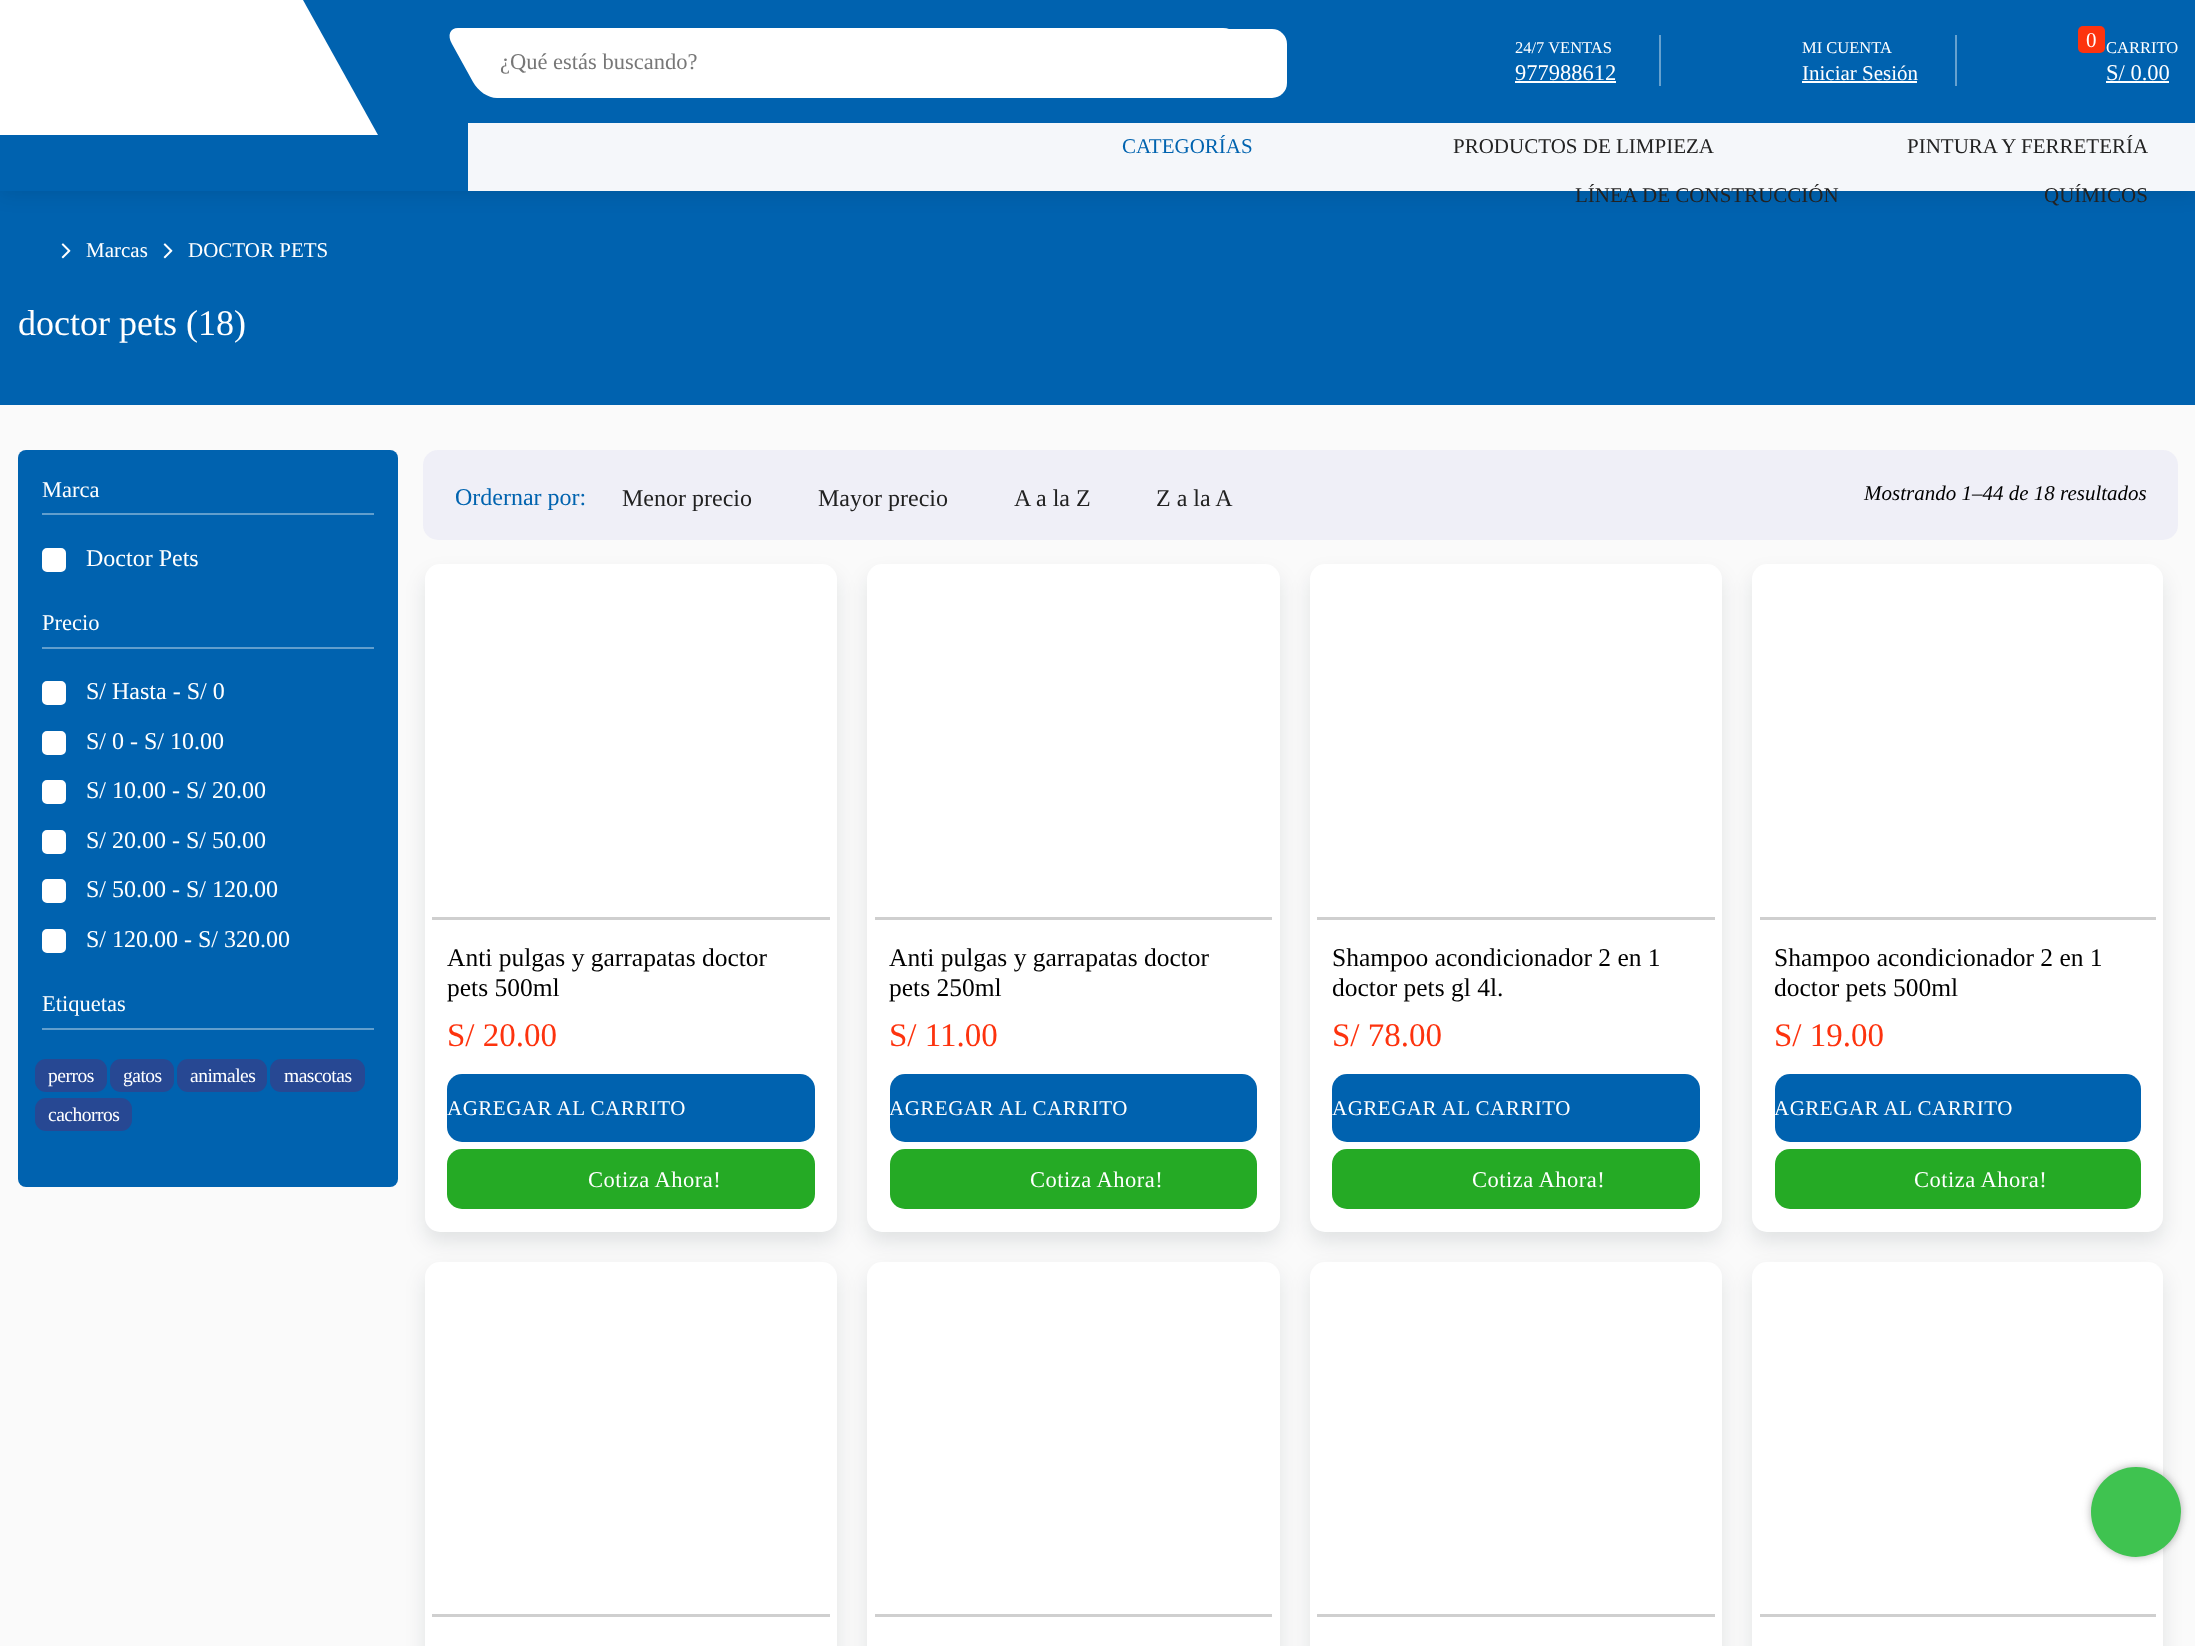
(async () => {
const canvas = document.querySelector("canvas")
canvas.width = 2195
canvas.height = 1646
const c = canvas.getContext("2d")
c.miterLimit = 4
c.fontKerning = "normal"
function T(s,x,y){c.fillText(s,x,y)}
function R(x,y,w,h){c.fillRect(x,y,w,h)}
function Q(x,y,w,h,r){c.beginPath();c.roundRect(x,y,w,h,r);c.fill()}
async function I(src,x,y,w,h){const img=new Image();img.src=src;await img.decode();c.drawImage(img,x,y,w,h)}
let path
c.fillStyle="#fafafa"
R(0,0,2195,1646)
c.fillStyle="#0062af"
R(0,191,2195,214)
c.fillStyle="#00000021"
c.filter="blur(11px)"
c.beginPath()
c.rect(0,0,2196,191)
c.fill()
c.filter="none"
c.fillStyle="#0062af"
R(0,0,2195,191)
c.fillStyle="#fff"
R(0,0,116,135)
path = new Path2D("M40 0h263l75 135h-262z")
c.fill(path)
Q(492,29,795,69,15)
path = new Path2D("M458 28h765c9 0 19 7 24 16l21 38c5 9 2 16-6 16h-765c-9 0-19-7-24-16l-21-38c-5-9-2-16 6-16z")
c.fill(path)
c.font="22.5px Liberation Serif"
c.fillStyle="#777"
T("¿Qué estás buscando?",500,69)
c.font="16.5px Liberation Serif"
c.fillStyle="#fff"
T("24/7 VENTAS",1515,53)
c.font="22.5px Liberation Serif"
T("977988612",1515,80)
R(1515,81,101,2)
c.fillStyle="#66a1cf"
R(1955,35,2,51)
R(1659,35,2,51)
c.font="16.5px Liberation Serif"
c.fillStyle="#fff"
T("MI CUENTA",1802,53)
c.font="21px Liberation Serif"
T("Iniciar Sesión",1802,80)
R(1802,81,115,2)
c.fillStyle="#fd330e"
Q(2078,26,27,27,5)
c.fillStyle="#fff"
T("0",2086,47)
c.font="16.5px Liberation Serif"
T("CARRITO",2106,53)
c.font="22.5px Liberation Serif"
T("S/ 0.00",2106,80)
R(2106,81,63,2)
c.fillStyle="#f5f7fa"
R(468,123,1727,68)
c.font="21px Liberation Serif"
c.fillStyle="#0063af"
T("CATEGORÍAS",1122,153)
c.fillStyle="#222"
T("PRODUCTOS DE LIMPIEZA",1453,153)
T("PINTURA Y FERRETERÍA",1907,153)
T("LÍNEA DE CONSTRUCCIÓN",1575,202)
T("QUÍMICOS",2044,202)
await I("1.png",61,243,10,16)
c.fillStyle="#fff"
T("Marcas",86,257)
await I("1.png",163,243,10,16)
T("DOCTOR PETS",188,257)
c.font="36px Liberation Serif"
T("doctor pets (18)",18,335)
c.fillStyle="#0062af"
Q(18,450,380,737,8)
c.fillStyle="#619ecd"
R(42,513,332,2)
c.font="22.5px Liberation Serif"
c.fillStyle="#fff"
T("Marca",42,497)
c.beginPath()
c.roundRect(43,549,22,22,4)
c.fill()
c.strokeStyle="#fff"
c.lineWidth=2
c.stroke()
c.font="24px Liberation Serif"
T("Doctor Pets",86,566)
c.fillStyle="#619ecd"
R(42,647,332,2)
c.font="22.5px Liberation Serif"
c.fillStyle="#fff"
T("Precio",42,630)
c.beginPath()
c.roundRect(43,682,22,22,4)
c.fill()
c.stroke()
c.font="24px Liberation Serif"
T("S/ Hasta - S/ 0",86,699)
c.beginPath()
c.roundRect(43,732,22,22,4)
c.fill()
c.stroke()
T("S/ 0 - S/ 10.00",86,749)
c.beginPath()
c.roundRect(43,781,22,22,4)
c.fill()
c.stroke()
T("S/ 10.00 - S/ 20.00",86,798)
c.beginPath()
c.roundRect(43,831,22,22,4)
c.fill()
c.stroke()
T("S/ 20.00 - S/ 50.00",86,848)
c.beginPath()
c.roundRect(43,880,22,22,4)
c.fill()
c.stroke()
T("S/ 50.00 - S/ 120.00",86,897)
c.beginPath()
c.roundRect(43,930,22,22,4)
c.fill()
c.stroke()
T("S/ 120.00 - S/ 320.00",86,947)
c.fillStyle="#619ecd"
R(42,1028,332,2)
c.font="22.5px Liberation Serif"
c.fillStyle="#fff"
T("Etiquetas",42,1011)
c.fillStyle="#274893"
Q(35,1059,72,33,11)
c.letterSpacing="-0.5px"
c.font="19.5px Liberation Serif"
c.fillStyle="#fff"
T("perros",48,1082)
c.fillStyle="#274893"
Q(110,1059,64,33,11)
c.fillStyle="#fff"
T("gatos",123,1082)
c.fillStyle="#274893"
Q(177,1059,90,33,11)
c.fillStyle="#fff"
T("animales",190,1082)
c.fillStyle="#274893"
Q(270,1059,95,33,11)
c.fillStyle="#fff"
T("mascotas",284,1082)
c.fillStyle="#274893"
Q(35,1098,97,33,11)
c.fillStyle="#fff"
T("cachorros",48,1121)
c.fillStyle="#efeff7"
Q(423,450,1755,90,15)
c.letterSpacing="0px"
c.font="24px Liberation Serif"
c.fillStyle="#0063af"
T("Ordernar por:",455,505)
c.fillStyle="#222"
T("Menor precio",622,506)
T("Mayor precio",818,506)
T("A a la Z",1014,506)
T("Z a la A",1156,506)
c.font="italic 21px Liberation Serif"
c.fillStyle="#000"
T("Mostrando 1–44 de 18 resultados",1864,500)
c.fillStyle="#0017221a"
c.filter="blur(10px)"
c.beginPath()
c.roundRect(425,575,412,667,15)
c.fill()
c.filter="none"
c.fillStyle="#fff"
Q(425,564,412,668,15)
c.fillStyle="#cfcfcf"
R(432,917,398,3)
c.font="25.5px Liberation Serif"
c.fillStyle="#000"
T("Anti pulgas y garrapatas doctor",447,966)
T("pets 500ml",447,996)
c.font="33px Liberation Serif"
c.fillStyle="#fd330e"
T("S/ 20.00",447,1046)
c.fillStyle="#0062af"
Q(447,1074,368,68,15)
c.letterSpacing="0.5px"
c.font="21px Liberation Serif"
c.fillStyle="#fff"
T("AGREGAR AL CARRITO",447,1115)
c.fillStyle="#25aa25"
Q(447,1149,368,60,15)
c.font="22.5px Liberation Serif"
c.fillStyle="#fff"
T("Cotiza Ahora!",588,1187)
c.fillStyle="#0017221a"
c.filter="blur(10px)"
c.beginPath()
c.roundRect(867,575,413,667,15)
c.fill()
c.filter="none"
c.fillStyle="#fff"
Q(867,564,413,668,15)
c.fillStyle="#cfcfcf"
R(875,917,397,3)
c.letterSpacing="0px"
c.font="25.5px Liberation Serif"
c.fillStyle="#000"
T("Anti pulgas y garrapatas doctor",889,966)
T("pets 250ml",889,996)
c.font="33px Liberation Serif"
c.fillStyle="#fd330e"
T("S/ 11.00",889,1046)
c.fillStyle="#0062af"
Q(890,1074,367,68,15)
c.letterSpacing="0.5px"
c.font="21px Liberation Serif"
c.fillStyle="#fff"
T("AGREGAR AL CARRITO",889,1115)
c.fillStyle="#25aa25"
Q(890,1149,367,60,15)
c.font="22.5px Liberation Serif"
c.fillStyle="#fff"
T("Cotiza Ahora!",1030,1187)
c.fillStyle="#0017221a"
c.filter="blur(10px)"
c.beginPath()
c.roundRect(1310,575,412,667,15)
c.fill()
c.filter="none"
c.fillStyle="#fff"
Q(1310,564,412,668,15)
c.fillStyle="#cfcfcf"
R(1317,917,398,3)
c.letterSpacing="0px"
c.font="25.5px Liberation Serif"
c.fillStyle="#000"
T("Shampoo acondicionador 2 en 1",1332,966)
T("doctor pets gl 4l.",1332,996)
c.font="33px Liberation Serif"
c.fillStyle="#fd330e"
T("S/ 78.00",1332,1046)
c.fillStyle="#0062af"
Q(1332,1074,368,68,15)
c.letterSpacing="0.5px"
c.font="21px Liberation Serif"
c.fillStyle="#fff"
T("AGREGAR AL CARRITO",1332,1115)
c.fillStyle="#25aa25"
Q(1332,1149,368,60,15)
c.font="22.5px Liberation Serif"
c.fillStyle="#fff"
T("Cotiza Ahora!",1472,1187)
c.fillStyle="#0017221a"
c.filter="blur(10px)"
c.beginPath()
c.roundRect(1752,575,411,667,15)
c.fill()
c.filter="none"
c.fillStyle="#fff"
Q(1752,564,411,668,15)
c.fillStyle="#cfcfcf"
R(1760,917,396,3)
c.letterSpacing="0px"
c.font="25.5px Liberation Serif"
c.fillStyle="#000"
T("Shampoo acondicionador 2 en 1",1774,966)
c.save()
c.beginPath()
c.rect(1775,944,366,60)
c.clip()
T("doctor pets 500ml",1774,996)
c.restore()
c.font="33px Liberation Serif"
c.fillStyle="#fd330e"
T("S/ 19.00",1774,1046)
c.fillStyle="#0062af"
Q(1775,1074,366,68,15)
c.letterSpacing="0.5px"
c.font="21px Liberation Serif"
c.fillStyle="#fff"
T("AGREGAR AL CARRITO",1774,1115)
c.fillStyle="#25aa25"
Q(1775,1149,366,60,15)
c.font="22.5px Liberation Serif"
c.fillStyle="#fff"
T("Cotiza Ahora!",1914,1187)
c.fillStyle="#0017221a"
c.filter="blur(10px)"
c.beginPath()
c.roundRect(425,1272,412,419,15)
c.fill()
c.filter="none"
c.fillStyle="#fff"
Q(425,1262,412,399,15)
c.fillStyle="#cfcfcf"
R(432,1614,398,3)
c.fillStyle="#0017221a"
c.filter="blur(10px)"
c.beginPath()
c.roundRect(867,1272,413,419,15)
c.fill()
c.filter="none"
c.fillStyle="#fff"
Q(867,1262,413,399,15)
c.fillStyle="#cfcfcf"
R(875,1614,397,3)
c.fillStyle="#0017221a"
c.filter="blur(10px)"
c.beginPath()
c.roundRect(1310,1272,412,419,15)
c.fill()
c.filter="none"
c.fillStyle="#fff"
Q(1310,1262,412,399,15)
c.fillStyle="#cfcfcf"
R(1317,1614,398,3)
c.fillStyle="#0017221a"
c.filter="blur(10px)"
c.beginPath()
c.roundRect(1752,1272,411,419,15)
c.fill()
c.filter="none"
c.fillStyle="#fff"
Q(1752,1262,411,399,15)
c.fillStyle="#cfcfcf"
R(1760,1614,396,3)
c.fillStyle="#3c3c3c66"
c.filter="blur(4px)"
c.beginPath()
c.roundRect(2091,1467,90,90,45)
c.fill()
c.filter="none"
c.fillStyle="#3fc350"
c.beginPath()
c.arc(2136,1512,45,0,7)
c.fill()
})()
